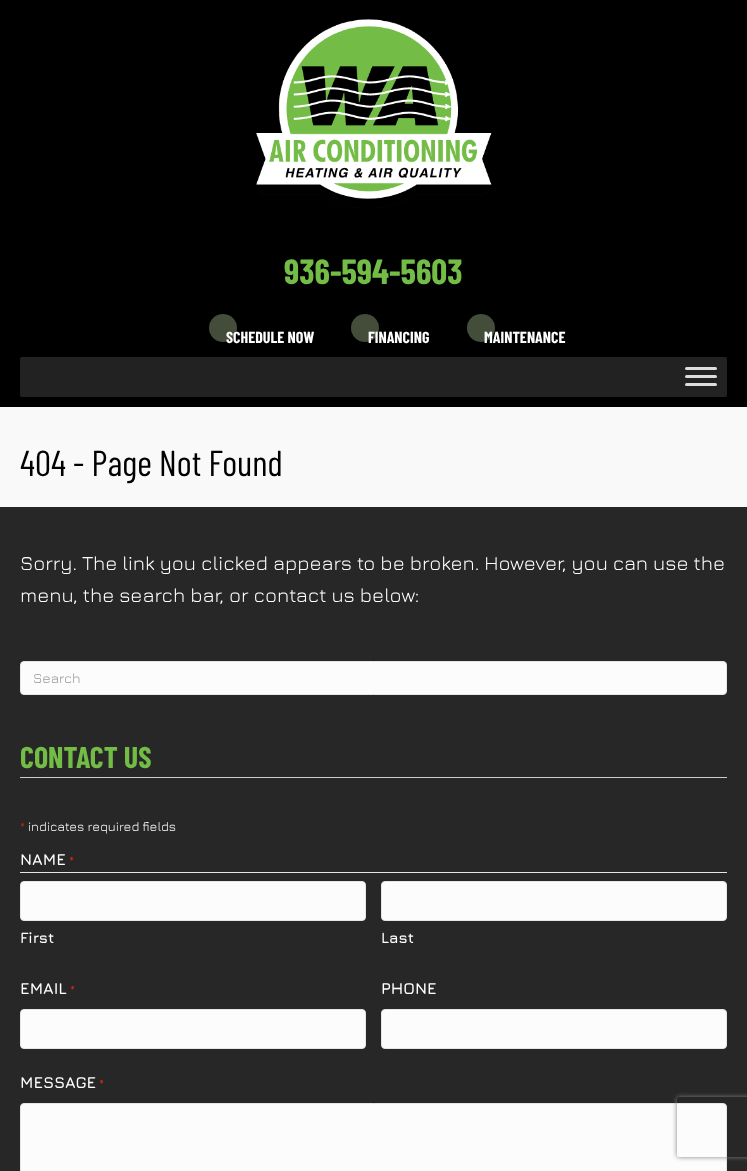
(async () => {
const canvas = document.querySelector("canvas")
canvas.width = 747
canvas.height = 1171
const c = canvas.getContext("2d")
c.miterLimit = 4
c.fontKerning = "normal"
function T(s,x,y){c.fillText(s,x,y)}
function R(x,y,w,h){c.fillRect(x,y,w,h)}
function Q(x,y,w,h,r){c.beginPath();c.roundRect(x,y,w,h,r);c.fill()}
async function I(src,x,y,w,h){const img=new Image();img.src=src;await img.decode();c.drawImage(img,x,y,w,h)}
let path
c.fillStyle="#272727"
R(0,0,747,1171)
c.fillStyle="#000"
R(0,0,747,407)
await I("1.png",256,19,236,189)
c.font="bold 35px Barlow Condensed"
c.fillStyle="#73bd46"
T("936-594-5603",284,284)
c.fillStyle="#434d3a"
c.beginPath()
c.arc(223,328,14,0,7)
c.fill()
c.font="bold 16px Barlow Condensed"
c.fillStyle="#fff"
T("SCHEDULE NOW",226,343)
c.fillStyle="#434d3a"
c.beginPath()
c.arc(365,328,14,0,7)
c.fill()
c.fillStyle="#fff"
T("FINANCING",368,343)
c.fillStyle="#434d3a"
c.beginPath()
c.arc(481,328,14,0,7)
c.fill()
c.fillStyle="#fff"
T("MAINTENANCE",484,343)
c.fillStyle="#222"
Q(20,357,707,40,2)
c.fillStyle="#ddd"
Q(685,367,32,3,1.5)
Q(685,375,32,3,1.5)
Q(685,383,32,3,1.5)
c.fillStyle="#f9f9f9"
R(0,407,747,100)
c.font="36px Barlow Condensed"
c.fillStyle="#000"
T("404 - Page Not Found",20,476)
c.font="20px Jura"
c.fillStyle="#fff"
T("Sorry. The link you clicked appears to be broken. However, you can use the",20,570)
T("menu, the search bar, or contact us below:",20,602)
c.fillStyle="#fcfcfc"
c.beginPath()
c.roundRect(20.5,661.5,706,33,3.5)
c.fill()
c.strokeStyle="#e6e6e6"
c.stroke()
c.font="14px Jura"
c.fillStyle="#979797"
T("Search",33,683)
c.font="bold 30px Barlow Condensed"
c.fillStyle="#73bd46"
T("CONTACT US",20,768)
c.fillStyle="#ccc"
R(20,777,707,1)
c.font="13px Jura"
c.fillStyle="#c02b0a"
T("*",20,831)
c.fillStyle="#fff"
T("indicates required fields",28,831)
c.fillStyle="#e5e5e5"
R(20,872,707,1)
c.font="bold 16px Jura"
c.fillStyle="#fff"
T("NAME",20,865)
c.font="bold 13px Jura"
c.fillStyle="#c02b0a"
T("*",69,865)
c.fillStyle="#fcfcfc"
c.beginPath()
c.roundRect(20.5,881.5,345,39,3.5)
c.fill()
c.stroke()
c.font="bold 15px Jura"
c.fillStyle="#fff"
T("First",20,943)
c.fillStyle="#fcfcfc"
c.beginPath()
c.roundRect(381.5,881.5,345,39,3.5)
c.fill()
c.stroke()
c.fillStyle="#fff"
T("Last",381,943)
c.font="bold 16px Jura"
T("EMAIL",20,994)
c.font="bold 13px Jura"
c.fillStyle="#c02b0a"
T("*",70,994)
c.fillStyle="#fcfcfc"
c.beginPath()
c.roundRect(20.5,1009.5,345,39,3.5)
c.fill()
c.stroke()
c.font="bold 16px Jura"
c.fillStyle="#fff"
T("PHONE",381,994)
c.fillStyle="#fcfcfc"
c.beginPath()
c.roundRect(381.5,1009.5,345,39,3.5)
c.fill()
c.stroke()
c.fillStyle="#fff"
T("MESSAGE",20,1088)
c.font="bold 13px Jura"
c.fillStyle="#c02b0a"
T("*",99,1088)
c.fillStyle="#fcfcfc"
c.beginPath()
c.roundRect(20.5,1103.5,706,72,3.5)
c.fill()
c.stroke()
c.save()
path = new Path2D("M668 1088h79v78h-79zm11 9h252c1 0 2 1 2 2v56c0 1-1 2-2 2h-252c-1 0-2-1-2-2v-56c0-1 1-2 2-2z")
c.clip(path,"evenodd")
c.fillStyle="#808080"
c.filter="blur(2.5px)"
c.beginPath()
c.roundRect(677,1097,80,60,2)
c.fill()
c.filter="none"
c.restore()
})()
